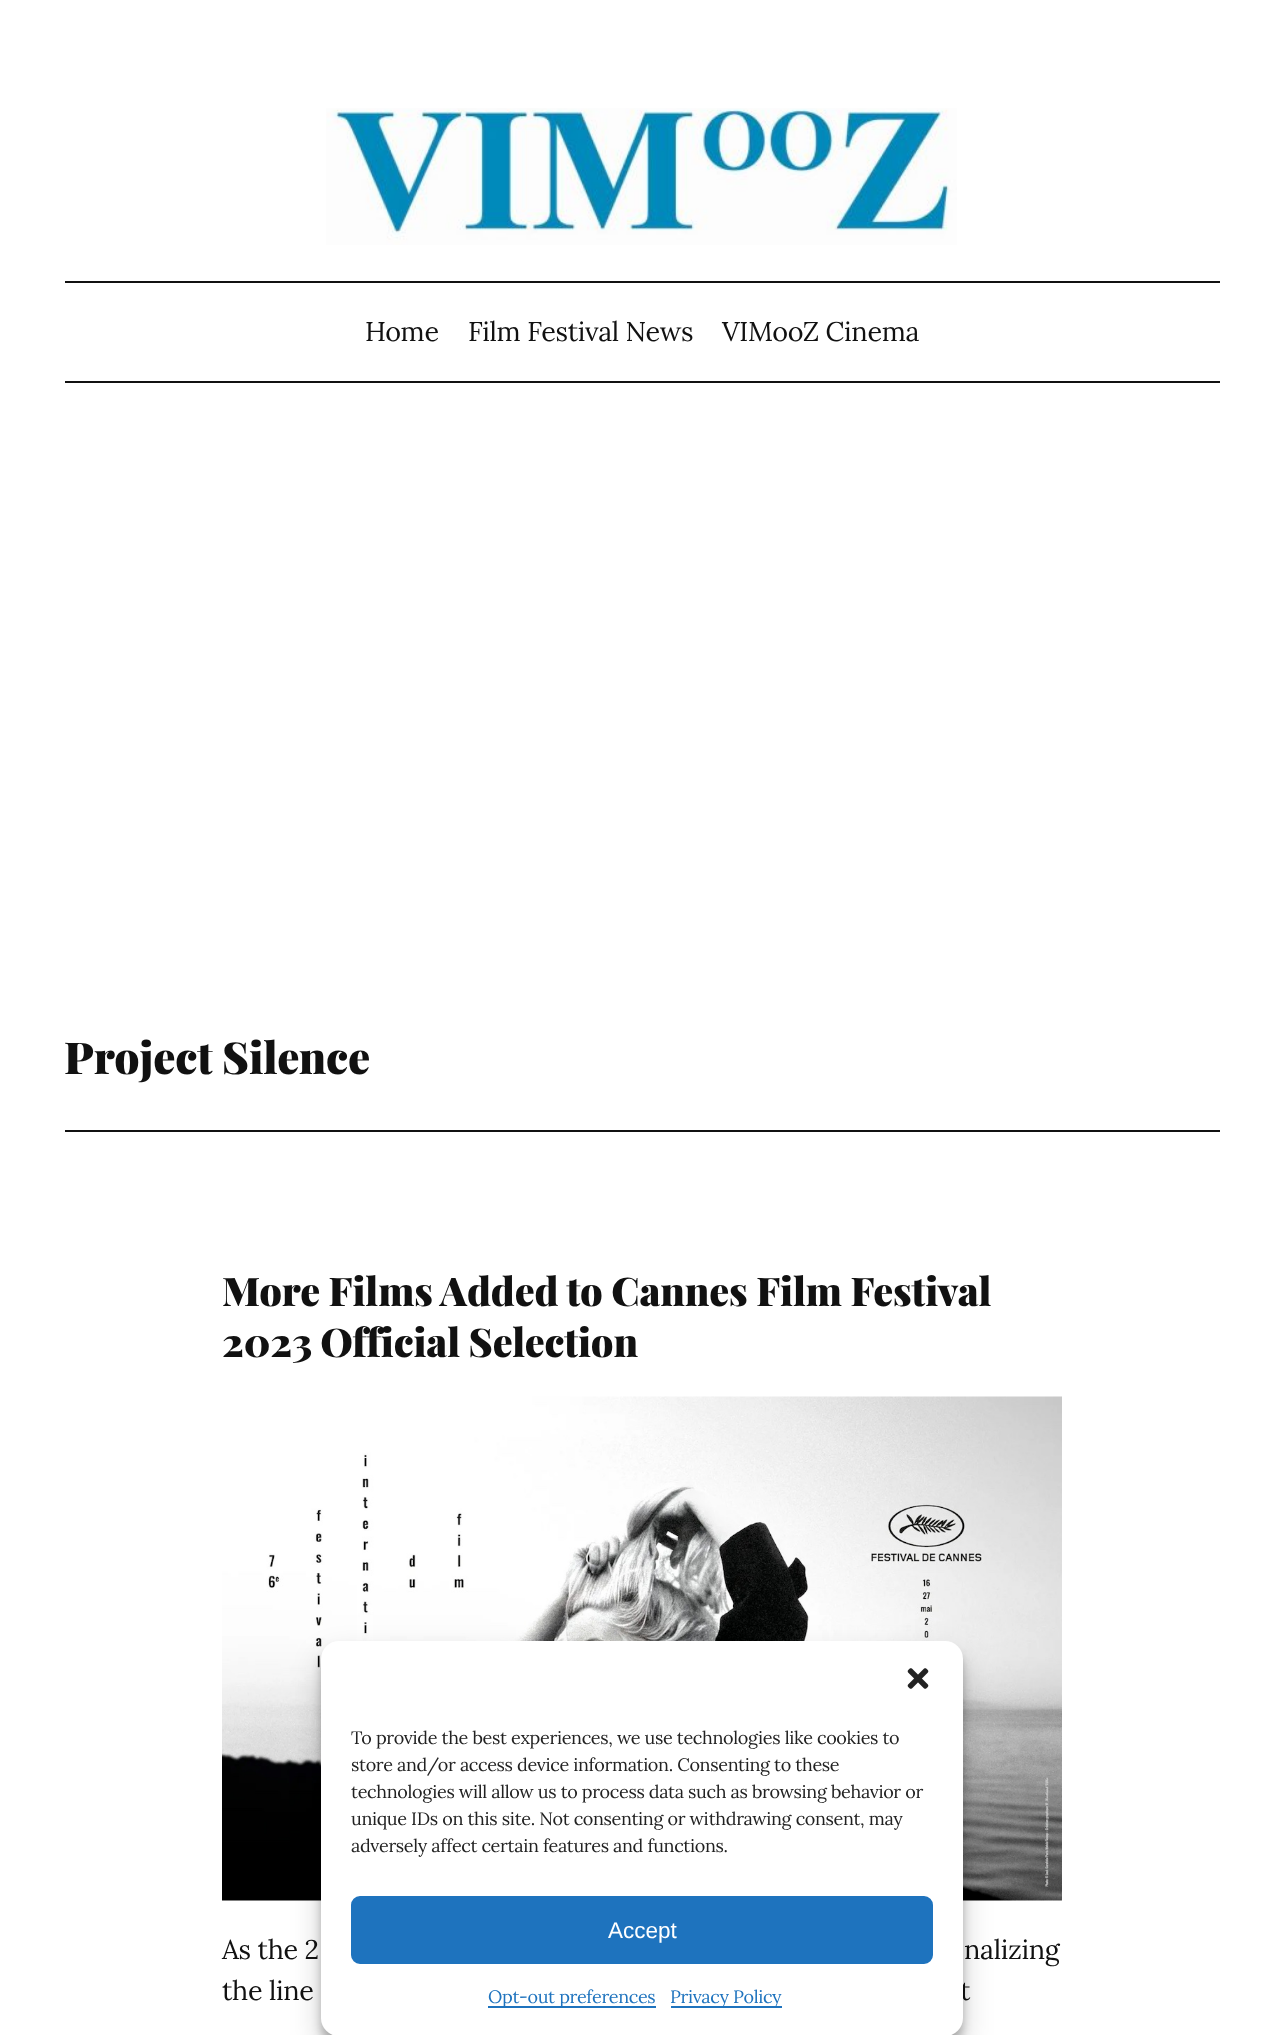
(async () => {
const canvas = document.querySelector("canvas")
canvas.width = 1284
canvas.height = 2035
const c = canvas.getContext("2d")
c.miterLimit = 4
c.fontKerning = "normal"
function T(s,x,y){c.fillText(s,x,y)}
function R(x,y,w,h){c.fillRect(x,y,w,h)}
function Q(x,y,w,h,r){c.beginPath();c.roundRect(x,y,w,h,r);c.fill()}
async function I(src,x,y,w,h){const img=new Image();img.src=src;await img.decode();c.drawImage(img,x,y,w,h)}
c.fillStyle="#fff"
R(0,0,1284,2035)
await I("1.png",326,108,631,137)
c.fillStyle="#111"
R(65,281,1155,2)
c.letterSpacing="-0.33px"
c.font="27px Lora"
T("Home",365,341)
T("Film Festival News",468,341)
T("VIMooZ Cinema",722,341)
R(65,381,1155,2)
c.letterSpacing="-0.15px"
c.font="900 44px Playfair Display"
T("Project Silence",64,1074)
R(65,1130,1155,2)
c.font="900 39.5px Playfair Display"
T("More Films Added to Cannes Film Festival",222,1306)
T("2023 Official Selection",222,1357)
await I("2.png",222,1396,840,505)
c.letterSpacing="-0.33px"
c.font="27px Lora"
T("As the 2",222,1959)
T("nalizing",964,1959)
T("the line",222,2000)
T("t",960,2000)
c.fillStyle="#0000003b"
c.filter="blur(4.5px)"
c.beginPath()
c.roundRect(321,1650,642,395,18)
c.fill()
c.filter="none"
c.fillStyle="#00000030"
c.filter="blur(15px)"
c.beginPath()
c.roundRect(321,1656,642,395,18)
c.fill()
c.filter="none"
c.fillStyle="#fff"
Q(321,1641,642,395,18)
await I("3.png",907,1668,22,21)
c.font="18px Lora"
c.fillStyle="#222"
T("To provide the best experiences, we use technologies like cookies to",351,1744)
T("store and/or access device information. Consenting to these",351,1771)
T("technologies will allow us to process data such as browsing behavior or",351,1798)
T("unique IDs on this site. Not consenting or withdrawing consent, may",351,1825)
T("adversely affect certain features and functions.",351,1852)
c.fillStyle="#1e73be"
c.beginPath()
c.roundRect(352,1897,580,66,8)
c.fill()
c.strokeStyle="#1e73be"
c.lineWidth=2
c.stroke()
c.letterSpacing="0px"
c.font="22.5px Liberation Sans"
c.fillStyle="#fff"
T("Accept",608,1938)
c.fillStyle="#1e73be"
R(488,2006,168,2)
c.letterSpacing="-0.33px"
c.font="18px Lora"
T("Opt-out preferences",488,2003)
R(671,2006,111,2)
T("Privacy Policy",670,2003)
})()
